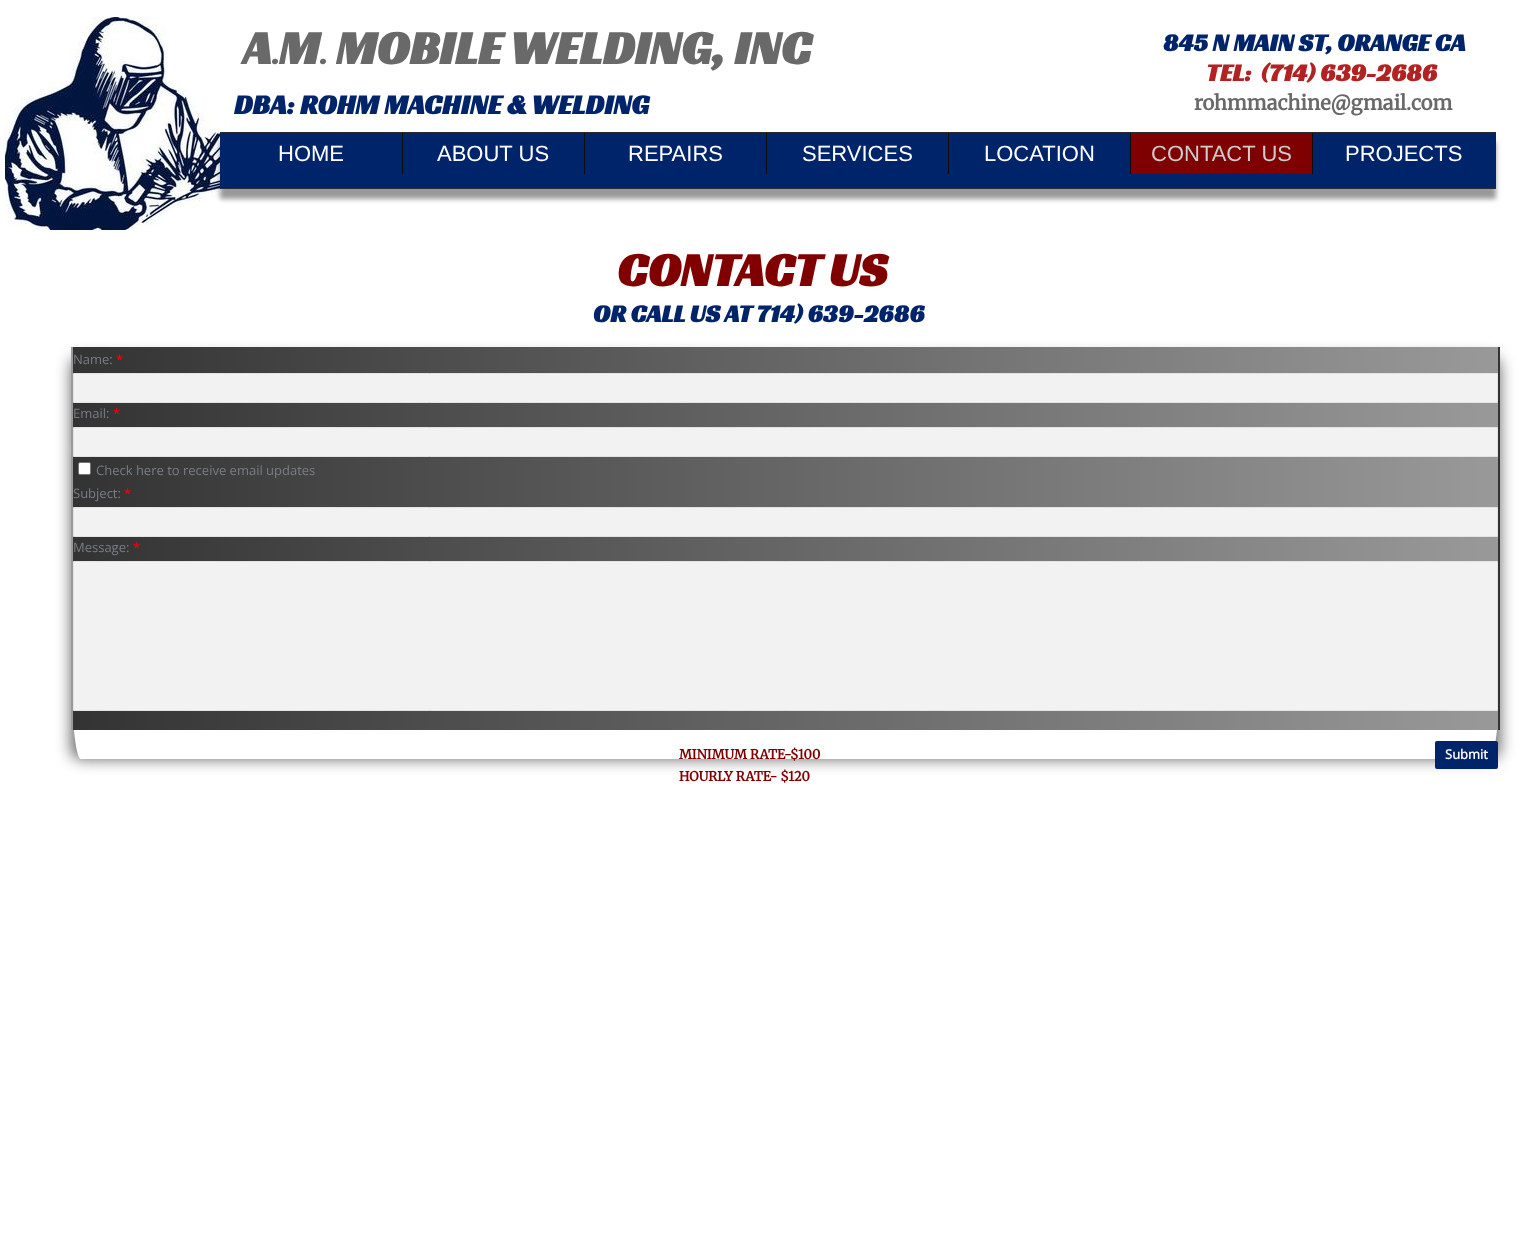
(async () => {
const canvas = document.querySelector("canvas")
canvas.width = 1521
canvas.height = 1244
const c = canvas.getContext("2d")
c.miterLimit = 4
c.fontKerning = "normal"
function T(s,x,y){c.fillText(s,x,y)}
function R(x,y,w,h){c.fillRect(x,y,w,h)}
function Q(x,y,w,h,r){c.beginPath();c.roundRect(x,y,w,h,r);c.fill()}
async function I(src,x,y,w,h){const img=new Image();img.src=src;await img.decode();c.drawImage(img,x,y,w,h)}
let gradient, path
c.fillStyle="#fff"
R(0,0,1521,1244)
await I("1.png",5,17,215,213)
c.font="bold 48px Racing Sans One"
c.fillStyle="#696969"
T("A",243,64)
c.font="bold 26px Racing Sans One"
T(".",272,64)
c.font="bold 48px Racing Sans One"
T("M",279,64)
c.font="bold 26px Racing Sans One"
T(".",320,64)
c.font="bold 48px Racing Sans One"
T("MOBILE WELDING, INC",336,64)
c.font="bold 28px Racing Sans One"
c.fillStyle="#00246a"
T("DBA: ROHM MACHINE & WELDING",234,114)
c.font="bold 25px Racing Sans One"
T("845 N MAIN ST, ORANGE CA",1163,51)
c.fillStyle="#b22222"
T("TEL:  (714) 639-2686",1206,81)
c.font="bold 20px Merriweather"
c.fillStyle="#696969"
T("rohmmachine@gmail.com",1194,110)
c.fillStyle="#00000066"
c.filter="blur(2.5px)"
c.beginPath()
c.rect(220,142,1276,57)
c.fill()
c.filter="none"
c.fillStyle="#00246a"
R(220,133,1276,55)
c.fillStyle="#282a33"
R(220,132,1276,1)
R(220,188,1276,1)
c.fillStyle="#0d0d10"
R(402,133,1,41)
c.font="22px Liberation Sans"
c.fillStyle="#fff"
T("HOME",278,161)
c.fillStyle="#0d0d10"
R(584,133,1,41)
c.fillStyle="#fff"
T("ABOUT US",437,161)
c.fillStyle="#0d0d10"
R(766,133,1,41)
c.fillStyle="#fff"
T("REPAIRS",628,161)
c.fillStyle="#0d0d10"
R(948,133,1,41)
c.fillStyle="#fff"
T("SERVICES",802,161)
c.fillStyle="#0d0d10"
R(1130,133,1,41)
c.fillStyle="#fff"
T("LOCATION",984,161)
c.fillStyle="#7f0000"
R(1131,133,181,41)
c.fillStyle="#0d0d10"
R(1312,133,1,41)
c.fillStyle="#ccc"
T("CONTACT US",1151,161)
c.fillStyle="#fff"
T("PROJECTS",1345,161)
c.font="bold 48px Racing Sans One"
c.fillStyle="#800000"
T("CONTACT US",617,286)
c.font="bold 25px Racing Sans One"
c.fillStyle="#00246a"
T("OR CALL US AT 714) 639-2686",593,322)
c.save()
path = new Path2D("M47 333h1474v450h-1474zm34 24h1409c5.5 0 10 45 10 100v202c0 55-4.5 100-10 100h-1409c-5.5 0-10-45-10-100v-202c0-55 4.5-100 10-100z")
c.clip(path,"evenodd")
c.fillStyle="#00000099"
c.filter="blur(7.5px)"
c.beginPath()
c.roundRect(71,357,1429,402,10)
c.fill()
c.filter="none"
c.restore()
gradient = c.createLinearGradient(-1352,539,73,539)
gradient.addColorStop(0,"#333")
gradient.addColorStop(1,"#999")
c.fillStyle = gradient
R(71,347,2,383)
gradient = c.createLinearGradient(73,539,1498,539)
gradient.addColorStop(0,"#333")
gradient.addColorStop(1,"#999")
c.fillStyle = gradient
R(73,347,1425,383)
gradient = c.createLinearGradient(1498,539,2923,539)
gradient.addColorStop(0,"#333")
gradient.addColorStop(1,"#999")
c.fillStyle = gradient
R(1498,347,2,383)
c.font="13px Open Sans"
c.fillStyle="#787d86"
T("Name:",73,364)
c.fillStyle="#f00"
T("*",116,364)
c.fillStyle="#f2f2f2"
c.beginPath()
c.rect(73.5,373.5,1424,29)
c.fill()
c.strokeStyle="#e3e3e3"
c.stroke()
c.fillStyle="#787d86"
T("Email:",73,418)
c.fillStyle="#f00"
T("*",113,418)
c.fillStyle="#f2f2f2"
c.beginPath()
c.rect(73.5,427.5,1424,29)
c.fill()
c.stroke()
c.fillStyle="#fff"
c.beginPath()
c.roundRect(78.5,462.5,12,12,1.5)
c.fill()
c.strokeStyle="#767676"
c.stroke()
c.fillStyle="#787d86"
T("Check here to receive email updates",96,475)
T("Subject:",73,498)
c.fillStyle="#f00"
T("*",124,498)
c.fillStyle="#f2f2f2"
c.beginPath()
c.rect(73.5,507.5,1424,29)
c.fill()
c.strokeStyle="#e3e3e3"
c.stroke()
c.fillStyle="#787d86"
T("Message:",73,552)
c.fillStyle="#f00"
T("*",133,552)
c.fillStyle="#f2f2f2"
c.beginPath()
c.rect(73.5,561.5,1424,149)
c.fill()
c.stroke()
c.fillStyle="#00246a"
Q(1435,741,63,28,2)
c.font="bold 13px Open Sans"
c.fillStyle="#fff"
T("Submit",1445,759)
c.font="bold 13px Merriweather"
c.fillStyle="#800000"
T("MINIMUM RATE-$100",679,759)
T("HOURLY RATE- $120",679,781)
})()
